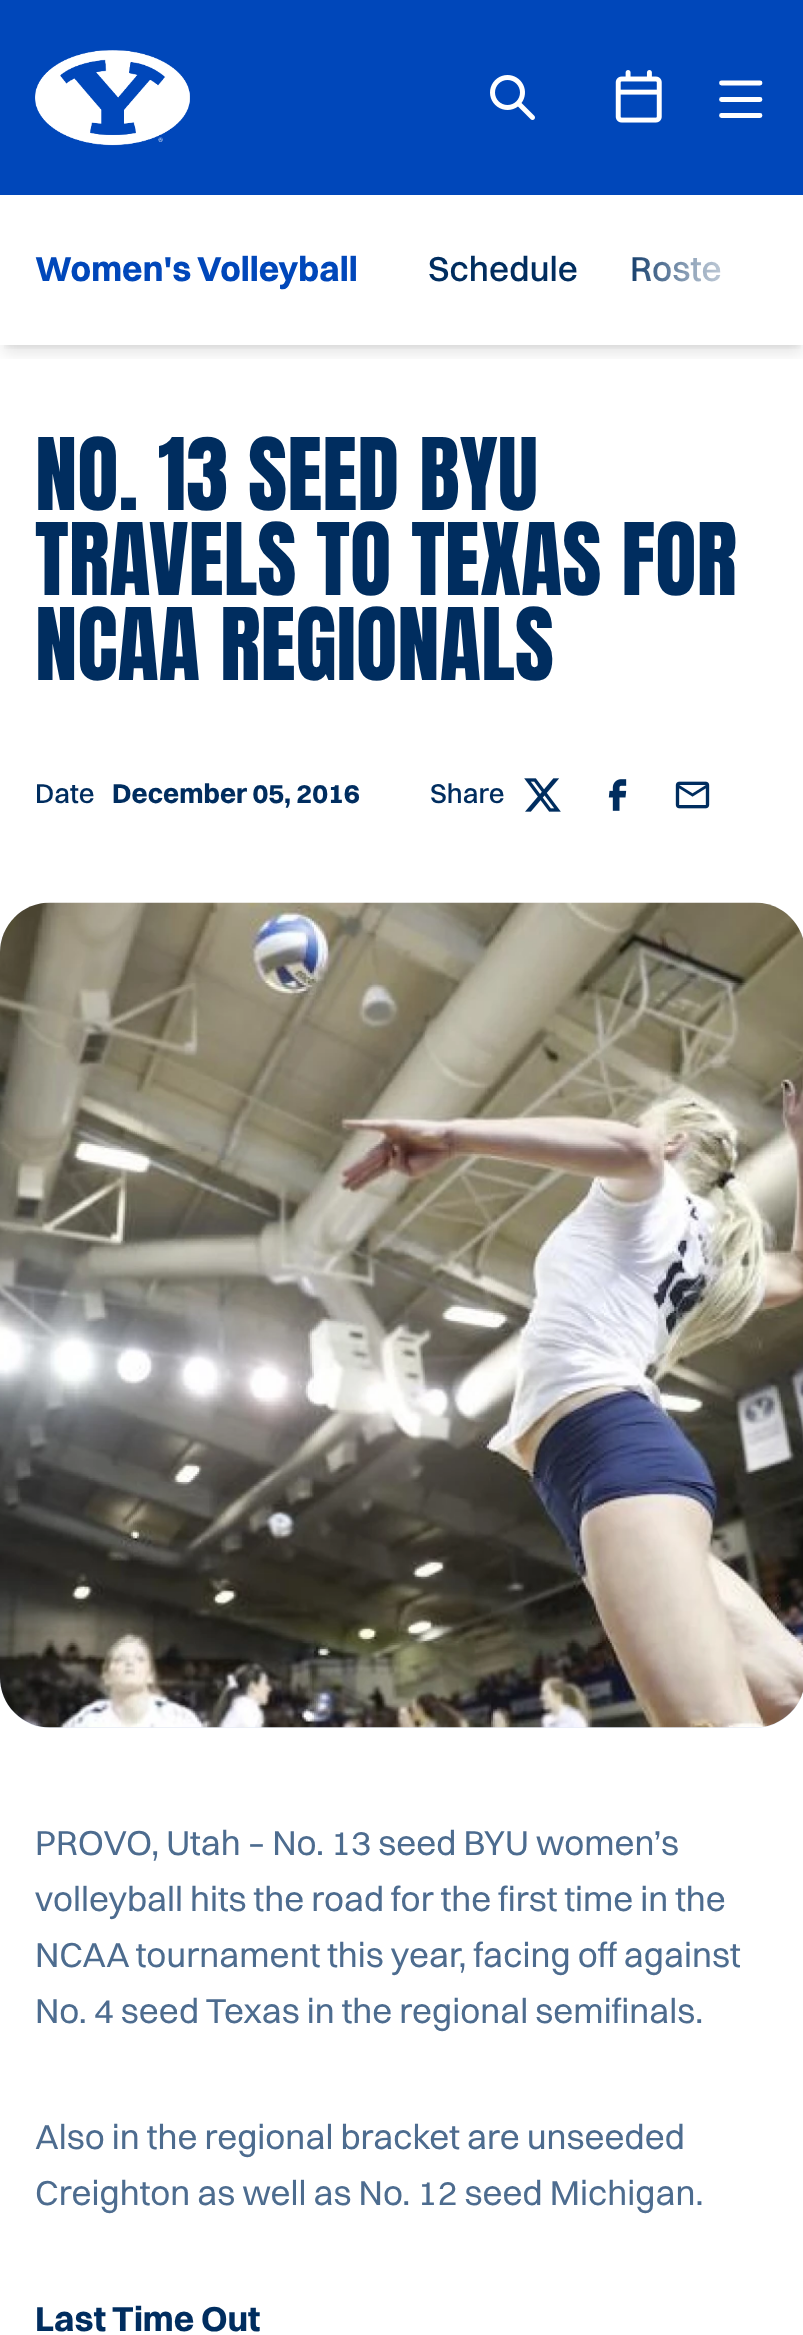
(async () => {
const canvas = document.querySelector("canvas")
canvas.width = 803
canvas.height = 2335
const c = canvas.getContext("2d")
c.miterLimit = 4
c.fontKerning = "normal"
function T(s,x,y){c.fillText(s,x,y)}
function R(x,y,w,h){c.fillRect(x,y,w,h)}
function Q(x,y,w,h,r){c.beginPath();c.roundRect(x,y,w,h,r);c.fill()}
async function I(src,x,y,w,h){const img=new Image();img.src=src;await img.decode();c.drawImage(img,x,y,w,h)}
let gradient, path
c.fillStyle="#fff"
R(0,0,803,2335)
c.save()
c.beginPath()
c.rect(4,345,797,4)
c.clip()
c.fillStyle="#0000001a"
c.filter="blur(5px)"
c.beginPath()
c.rect(5,205,795,140)
c.fill()
c.filter="none"
c.restore()
c.save()
c.beginPath()
c.rect(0,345,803,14)
c.clip()
c.fillStyle="#0000001a"
c.filter="blur(7.5px)"
c.beginPath()
c.rect(3,208,800,145)
c.fill()
c.filter="none"
c.restore()
c.fillStyle="#0047ba"
R(0,0,803,195)
await I("1.png",35,50,155,96)
await I("2.png",490,75,45,45)
await I("3.png",615,70,47,53)
path = new Path2D("M721.5 83h38.5m-38.5 16.5h38.5m0 16h-38.5")
c.strokeStyle="#fff"
c.lineWidth=4.8
c.lineCap="round"
c.stroke(path)
c.font="bold 35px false"
T("Women's Volleyball",35,281)
c.font="500 35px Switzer"
c.fillStyle="#002d5f"
T("Schedule",428,281)
T("Roste",630,281)
gradient = c.createLinearGradient(770,261,620,261)
gradient.addColorStop(0,"#fff")
gradient.addColorStop(.5,"#ffffff99")
gradient.addColorStop(1,"#ffffff00")
c.fillStyle = gradient
R(632,257,89,25)
c.font="85px Anton"
c.fillStyle="#002d5f"
T("NO. 13 SEED BYU",35,510)
T("TRAVELS TO TEXAS FOR",35,595)
T("NCAA REGIONALS",35,680)
c.font="500 27.5px Switzer"
T("Date",35,803)
c.font="bold 27.5px false"
T("December 05, 2016",112,803)
c.font="500 27.5px Switzer"
T("Share",430,803)
await I("4.png",524,778,37,34)
await I("5.png",608,779,19,32)
await I("6.png",675,781,35,28)
c.fillStyle="#e4eaf5"
Q(0,903,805,825,50)
await I("7.png",0,902,803,826)
c.font="35px false"
c.fillStyle="#4d6c8f"
T("PROVO, Utah – No. 13 seed BYU women’s",35,1855)
T("volleyball hits the road for the first time in the",35,1911)
T("NCAA tournament this year, facing off against",35,1967)
T("No. 4 seed Texas in the regional semifinals.",35,2023)
T("Also in the regional bracket are unseeded",35,2149)
T("Creighton as well as No. 12 seed Michigan.",35,2205)
c.font="bold 35px false"
c.fillStyle="#002d5f"
T("Last Time Out",35,2331)
})()
